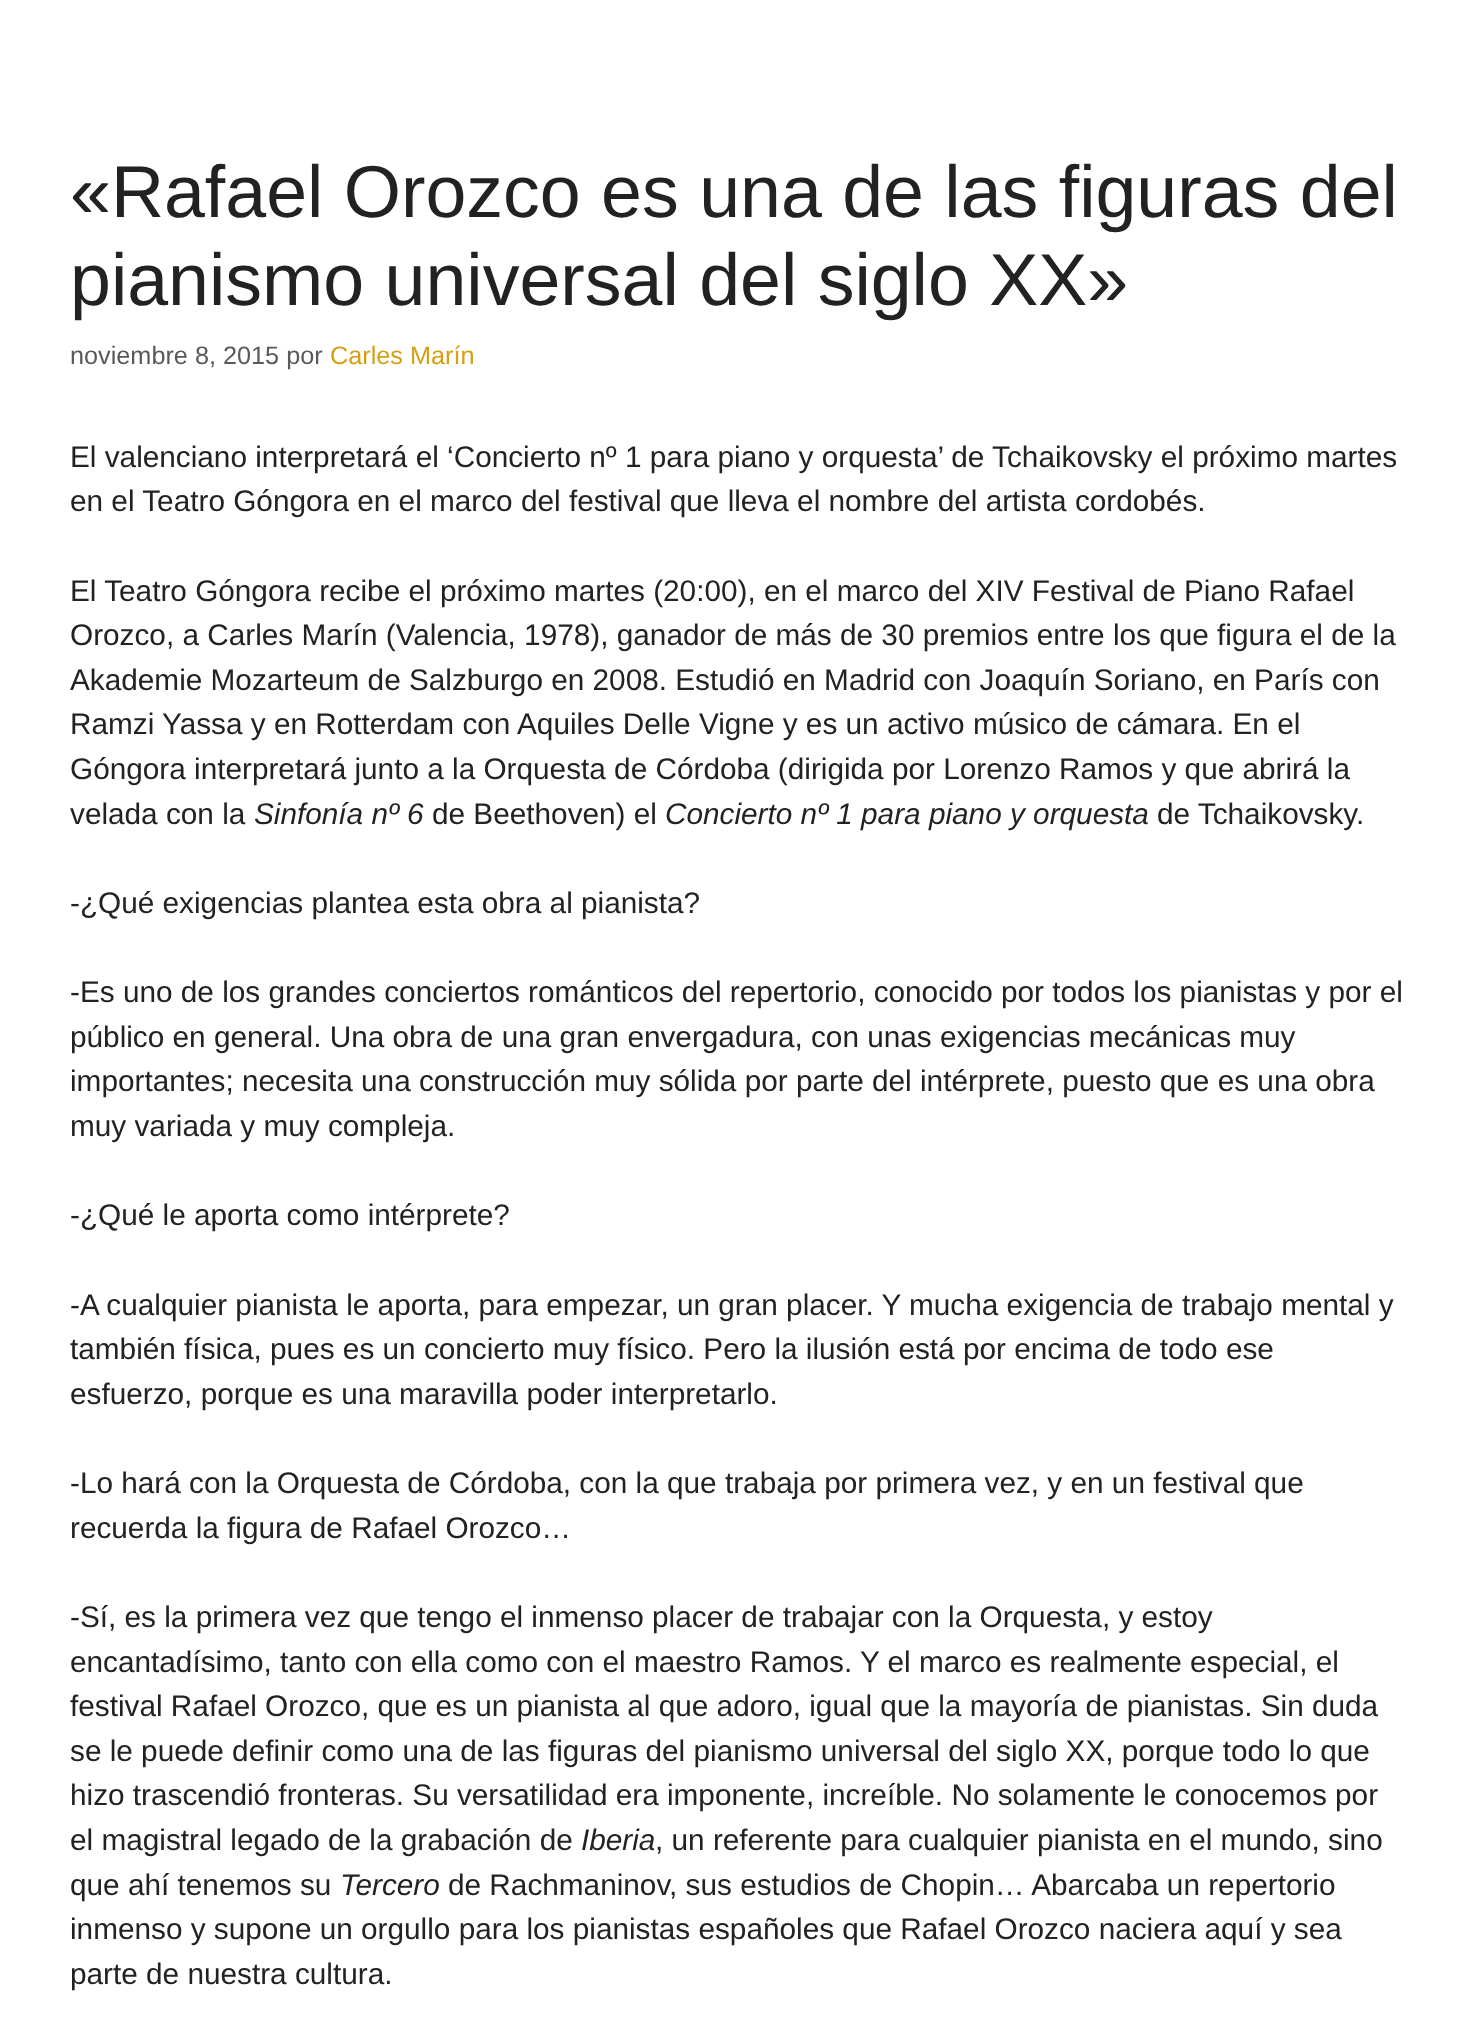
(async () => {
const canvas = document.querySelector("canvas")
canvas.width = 1472
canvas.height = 2031
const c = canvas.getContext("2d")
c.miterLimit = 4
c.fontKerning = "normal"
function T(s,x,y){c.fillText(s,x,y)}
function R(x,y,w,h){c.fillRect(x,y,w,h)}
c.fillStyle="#fff"
R(0,0,1472,2031)
c.font="73.5px Liberation Sans"
c.fillStyle="#222"
T("«Rafael Orozco es una de las figuras del",70,217)
T("pianismo universal del siglo XX»",70,305)
c.font="25.25px Liberation Sans"
c.fillStyle="#595959"
T("noviembre 8, 2015 por",70,364)
c.fillStyle="#d3a013"
T("Carles Marín",330,364)
c.font="29.75px Liberation Sans"
c.fillStyle="#222"
T("El valenciano interpretará el ‘Concierto nº 1 para piano y orquesta’ de Tchaikovsky el próximo martes",70,467)
T("en el Teatro Góngora en el marco del festival que lleva el nombre del artista cordobés.",70,511)
T("El Teatro Góngora recibe el próximo martes (20:00), en el marco del XIV Festival de Piano Rafael",70,601)
T("Orozco, a Carles Marín (Valencia, 1978), ganador de más de 30 premios entre los que figura el de la",70,645)
T("Akademie Mozarteum de Salzburgo en 2008. Estudió en Madrid con Joaquín Soriano, en París con",70,690)
T("Ramzi Yassa y en Rotterdam con Aquiles Delle Vigne y es un activo músico de cámara. En el",70,734)
T("Góngora interpretará junto a la Orquesta de Córdoba (dirigida por Lorenzo Ramos y que abrirá la",70,779)
T("velada con la",70,824)
c.font="italic 29.75px Liberation Sans"
T("Sinfonía nº 6",254,824)
c.font="29.75px Liberation Sans"
T("de Beethoven) el",432,824)
c.font="italic 29.75px Liberation Sans"
T("Concierto nº 1 para piano y orquesta",665,824)
c.font="29.75px Liberation Sans"
T("de Tchaikovsky.",1157,824)
T("-¿Qué exigencias plantea esta obra al pianista?",70,913)
T("-Es uno de los grandes conciertos románticos del repertorio, conocido por todos los pianistas y por el",70,1002)
T("público en general. Una obra de una gran envergadura, con unas exigencias mecánicas muy",70,1047)
T("importantes; necesita una construcción muy sólida por parte del intérprete, puesto que es una obra",70,1091)
T("muy variada y muy compleja.",70,1136)
T("-¿Qué le aporta como intérprete?",70,1225)
T("-A cualquier pianista le aporta, para empezar, un gran placer. Y mucha exigencia de trabajo mental y",70,1315)
T("también física, pues es un concierto muy físico. Pero la ilusión está por encima de todo ese",70,1359)
T("esfuerzo, porque es una maravilla poder interpretarlo.",70,1404)
T("-Lo hará con la Orquesta de Córdoba, con la que trabaja por primera vez, y en un festival que",70,1493)
T("recuerda la figura de Rafael Orozco…",70,1538)
T("-Sí, es la primera vez que tengo el inmenso placer de trabajar con la Orquesta, y estoy",70,1627)
T("encantadísimo, tanto con ella como con el maestro Ramos. Y el marco es realmente especial, el",70,1672)
T("festival Rafael Orozco, que es un pianista al que adoro, igual que la mayoría de pianistas. Sin duda",70,1716)
T("se le puede definir como una de las figuras del pianismo universal del siglo XX, porque todo lo que",70,1761)
T("hizo trascendió fronteras. Su versatilidad era imponente, increíble. No solamente le conocemos por",70,1805)
T("el magistral legado de la grabación de",70,1850)
c.font="italic 29.75px Liberation Sans"
T("Iberia",581,1850)
c.font="29.75px Liberation Sans"
T(", un referente para cualquier pianista en el mundo, sino",655,1850)
T("que ahí tenemos su",70,1895)
c.font="italic 29.75px Liberation Sans"
T("Tercero",340,1895)
c.font="29.75px Liberation Sans"
T("de Rachmaninov, sus estudios de Chopin… Abarcaba un repertorio",448,1895)
T("inmenso y supone un orgullo para los pianistas españoles que Rafael Orozco naciera aquí y sea",70,1939)
T("parte de nuestra cultura.",70,1984)
})()
